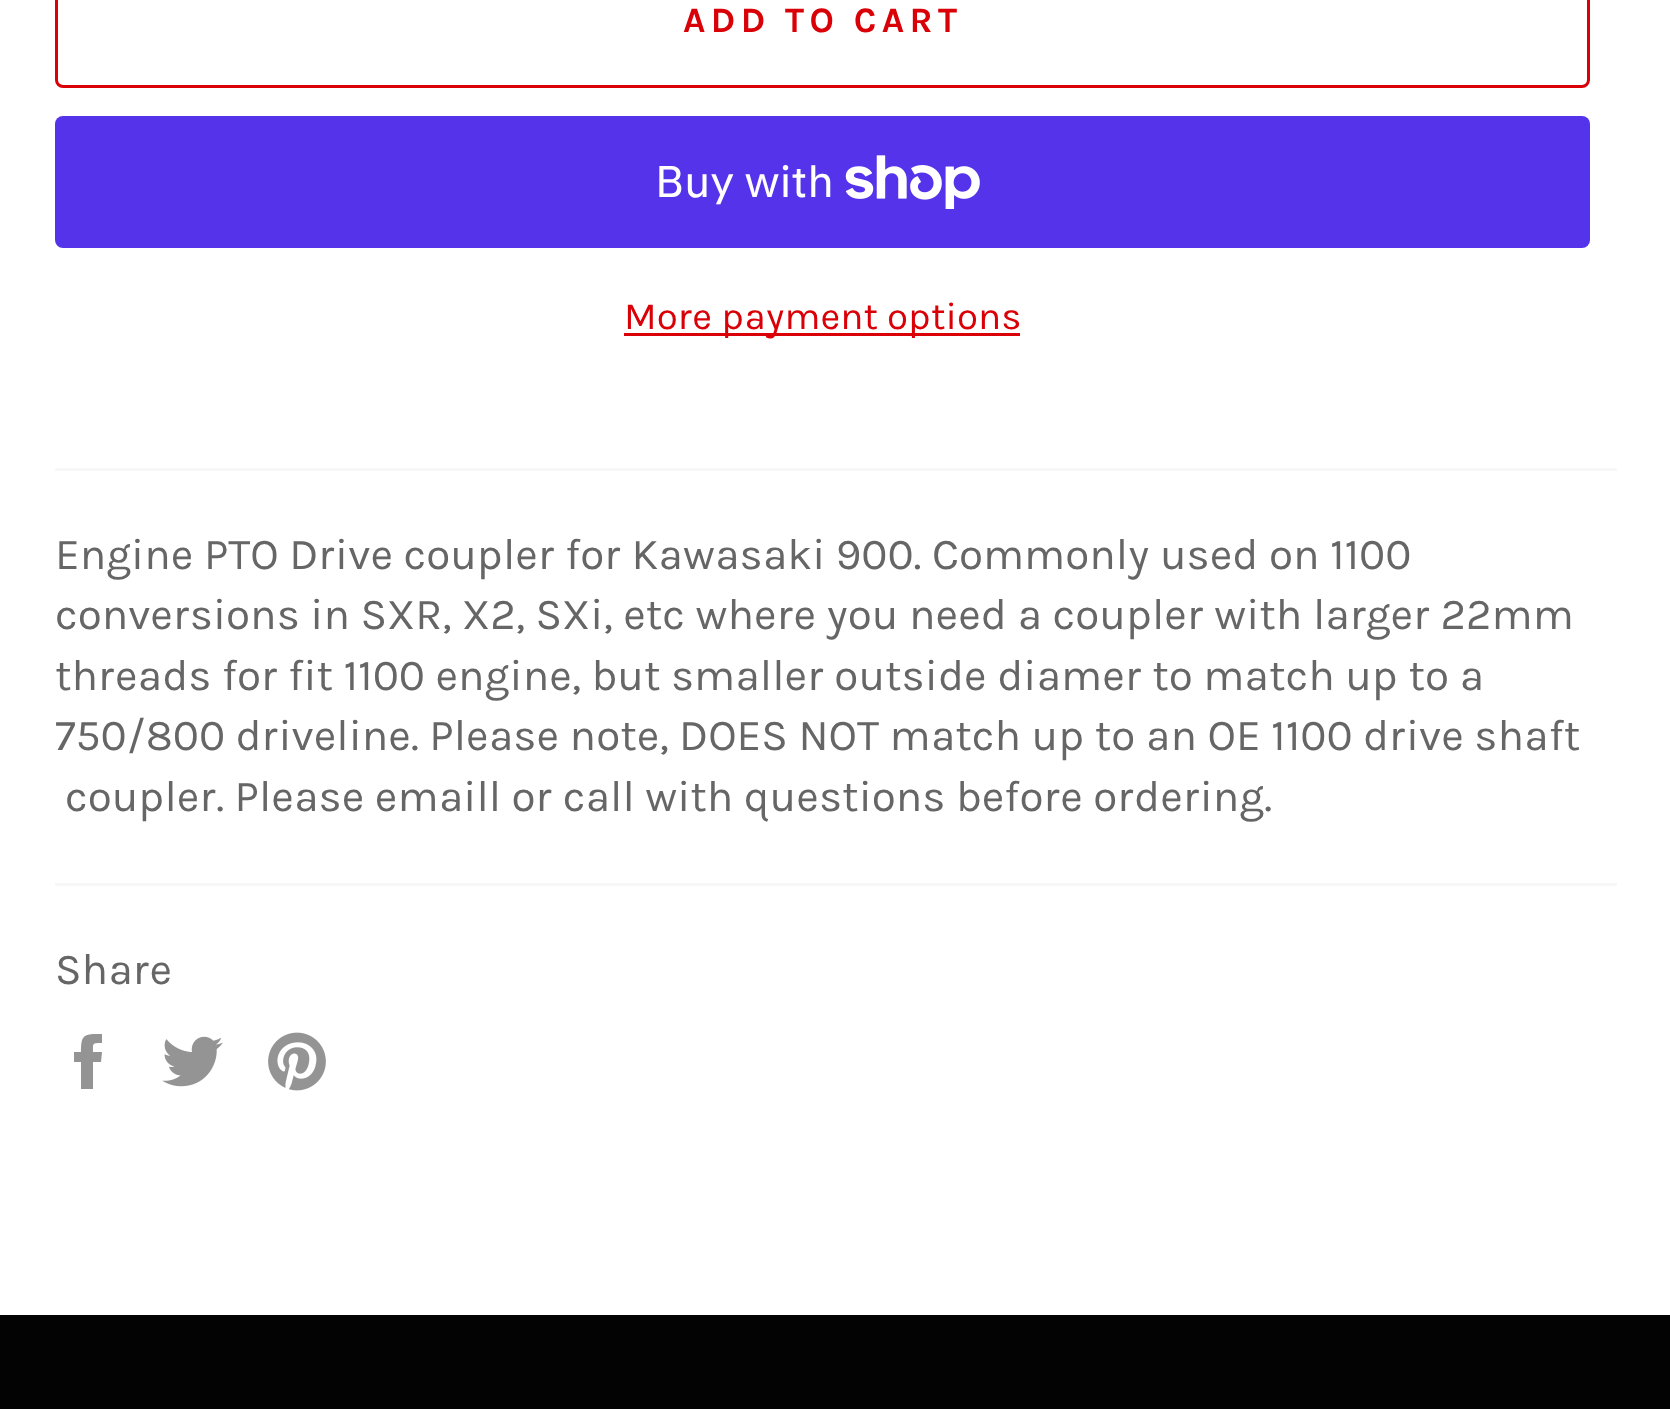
(async () => {
const canvas = document.querySelector("canvas")
canvas.width = 1670
canvas.height = 1409
const c = canvas.getContext("2d")
c.miterLimit = 4
c.fontKerning = "normal"
function T(s,x,y){c.fillText(s,x,y)}
function R(x,y,w,h){c.fillRect(x,y,w,h)}
function Q(x,y,w,h,r){c.beginPath();c.roundRect(x,y,w,h,r);c.fill()}
async function I(src,x,y,w,h){const img=new Image();img.src=src;await img.decode();c.drawImage(img,x,y,w,h)}
let path
c.fillStyle="#fff"
R(0,0,1670,1409)
c.beginPath()
c.roundRect(56.5,-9.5,1532,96,6.5)
c.strokeStyle="#d90107"
c.lineWidth=3
c.stroke()
c.letterSpacing="5.4px"
c.font="bold 35.75px Karla"
c.fillStyle="#d90107"
T("ADD TO CART",683,32)
c.fillStyle="#5433eb"
Q(55,116,1535,132,8)
c.letterSpacing="0px"
c.font="44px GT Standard"
c.fillStyle="#fff"
T("Buy with",655,197)
await I("1.png",845,155,135,54)
c.fillStyle="#d90107"
R(624,333,396,3)
c.font="38.5px Karla"
T("More payment options",624,329)
c.fillStyle="#f7f7f7"
R(55,468,1562,3)
c.font="44px Karla"
c.fillStyle="#666"
T("Engine PTO Drive coupler for Kawasaki 900. Commonly used on 1100",55,569)
T("conversions in SXR, X2, SXi, etc where you need a coupler with larger 22mm",55,629)
T("threads for fit 1100 engine, but smaller outside diamer to match up to a",55,690)
T("750/800 driveline. Please note, DOES NOT match up to an OE 1100 drive shaft",55,750)
T("coupler. Please emaill or call with questions before ordering.",65,811)
c.fillStyle="#f7f7f7"
R(55,883,1562,3)
c.fillStyle="#666"
T("Share",55,984)
c.fillStyle="#949494"
path = new Path2D("M93 1052c0-9-1-9 9-9v-9c-18 0-21 0-21 18h-7v10h7v27h12v-27h8l1-10z")
c.fill(path)
await I("2.png",162,1036,61,51)
await I("3.png",268,1032,58,59)
c.fillStyle="#030303"
R(0,1315,1670,94)
})()
